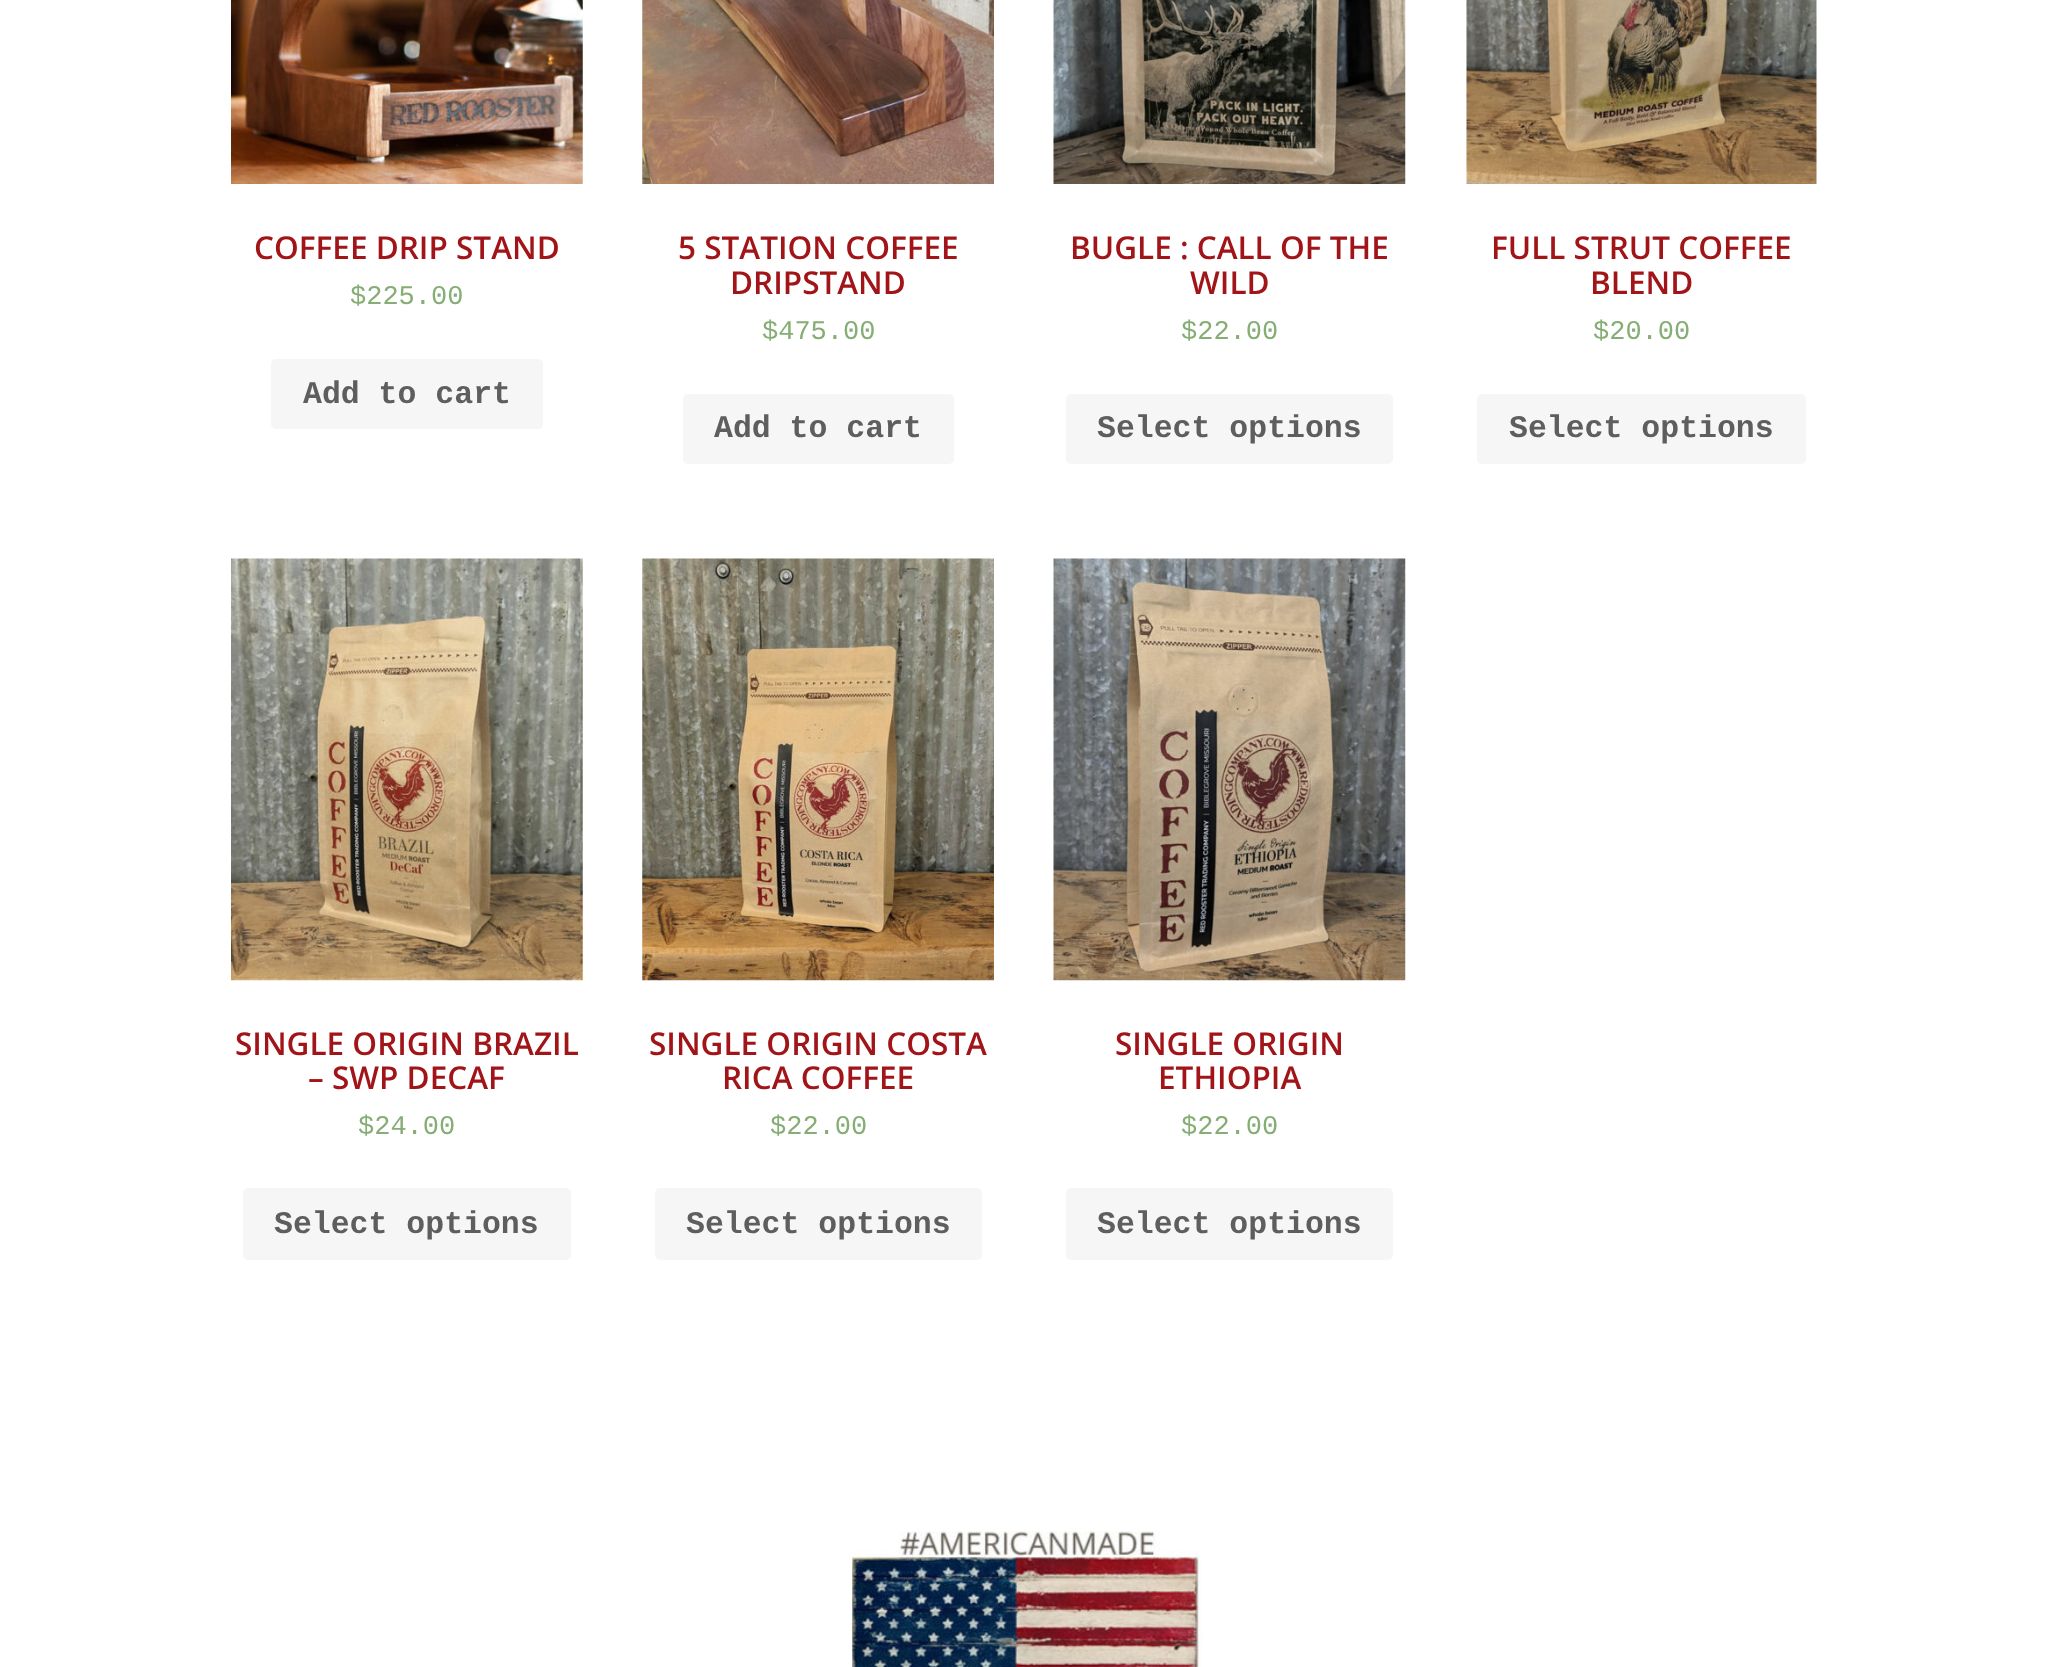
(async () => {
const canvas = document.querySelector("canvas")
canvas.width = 2053
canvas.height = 1667
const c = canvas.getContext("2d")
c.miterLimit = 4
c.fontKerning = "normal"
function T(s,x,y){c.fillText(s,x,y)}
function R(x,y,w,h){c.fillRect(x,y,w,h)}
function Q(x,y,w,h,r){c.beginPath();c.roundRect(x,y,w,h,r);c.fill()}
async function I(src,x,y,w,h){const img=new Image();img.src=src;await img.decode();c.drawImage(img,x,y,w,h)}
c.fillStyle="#fff"
R(0,0,2053,1667)
await I("1.png",231,0,352,184)
c.font="600 31.5px Open Sans"
c.fillStyle="#a11519"
T("COFFEE DRIP STAND",254,259)
c.font="27px Liberation Mono"
c.fillStyle="#85ad74"
T("$225.00",350,304)
c.fillStyle="#f7f6f7"
Q(271,359,272,70,5)
c.font="bold 31.5px Liberation Mono"
c.fillStyle="#5e5e5e"
T("Add to cart",303,403)
await I("2.png",642,0,352,184)
c.font="600 31.5px Open Sans"
c.fillStyle="#a11519"
T("5 STATION COFFEE",678,259)
T("DRIPSTAND",730,294)
c.font="27px Liberation Mono"
c.fillStyle="#85ad74"
T("$475.00",762,339)
c.fillStyle="#f7f6f7"
Q(683,394,271,70,5)
c.font="bold 31.5px Liberation Mono"
c.fillStyle="#5e5e5e"
T("Add to cart",714,437)
await I("3.png",1053,0,353,184)
c.font="600 31.5px Open Sans"
c.fillStyle="#a11519"
T("BUGLE : CALL OF THE",1070,259)
T("WILD",1190,294)
c.font="27px Liberation Mono"
c.fillStyle="#85ad74"
T("$22.00",1181,339)
c.fillStyle="#f7f6f7"
Q(1066,394,327,70,5)
c.font="bold 31.5px Liberation Mono"
c.fillStyle="#5e5e5e"
T("Select options",1097,437)
await I("4.png",1466,0,351,184)
c.font="600 31.5px Open Sans"
c.fillStyle="#a11519"
T("FULL STRUT COFFEE",1491,259)
T("BLEND",1590,294)
c.font="27px Liberation Mono"
c.fillStyle="#85ad74"
T("$20.00",1593,339)
c.fillStyle="#f7f6f7"
Q(1477,394,329,70,5)
c.font="bold 31.5px Liberation Mono"
c.fillStyle="#5e5e5e"
T("Select options",1509,437)
await I("5.png",231,558,352,423)
c.font="600 31.5px Open Sans"
c.fillStyle="#a11519"
T("SINGLE ORIGIN BRAZIL",235,1055)
T("– SWP DECAF",308,1089)
c.font="27px Liberation Mono"
c.fillStyle="#85ad74"
T("$24.00",358,1134)
c.fillStyle="#f7f6f7"
Q(243,1188,328,72,5)
c.font="bold 31.5px Liberation Mono"
c.fillStyle="#5e5e5e"
T("Select options",274,1233)
await I("6.png",642,558,352,423)
c.font="600 31.5px Open Sans"
c.fillStyle="#a11519"
T("SINGLE ORIGIN COSTA",649,1055)
T("RICA COFFEE",722,1089)
c.font="27px Liberation Mono"
c.fillStyle="#85ad74"
T("$22.00",770,1134)
c.fillStyle="#f7f6f7"
Q(655,1188,327,72,5)
c.font="bold 31.5px Liberation Mono"
c.fillStyle="#5e5e5e"
T("Select options",686,1233)
await I("7.png",1053,558,353,423)
c.font="600 31.5px Open Sans"
c.fillStyle="#a11519"
T("SINGLE ORIGIN",1115,1055)
T("ETHIOPIA",1158,1089)
c.font="27px Liberation Mono"
c.fillStyle="#85ad74"
T("$22.00",1181,1134)
c.fillStyle="#f7f6f7"
Q(1066,1188,327,72,5)
c.font="bold 31.5px Liberation Mono"
c.fillStyle="#5e5e5e"
T("Select options",1097,1233)
await I("8.png",852,1531,350,136)
})()
